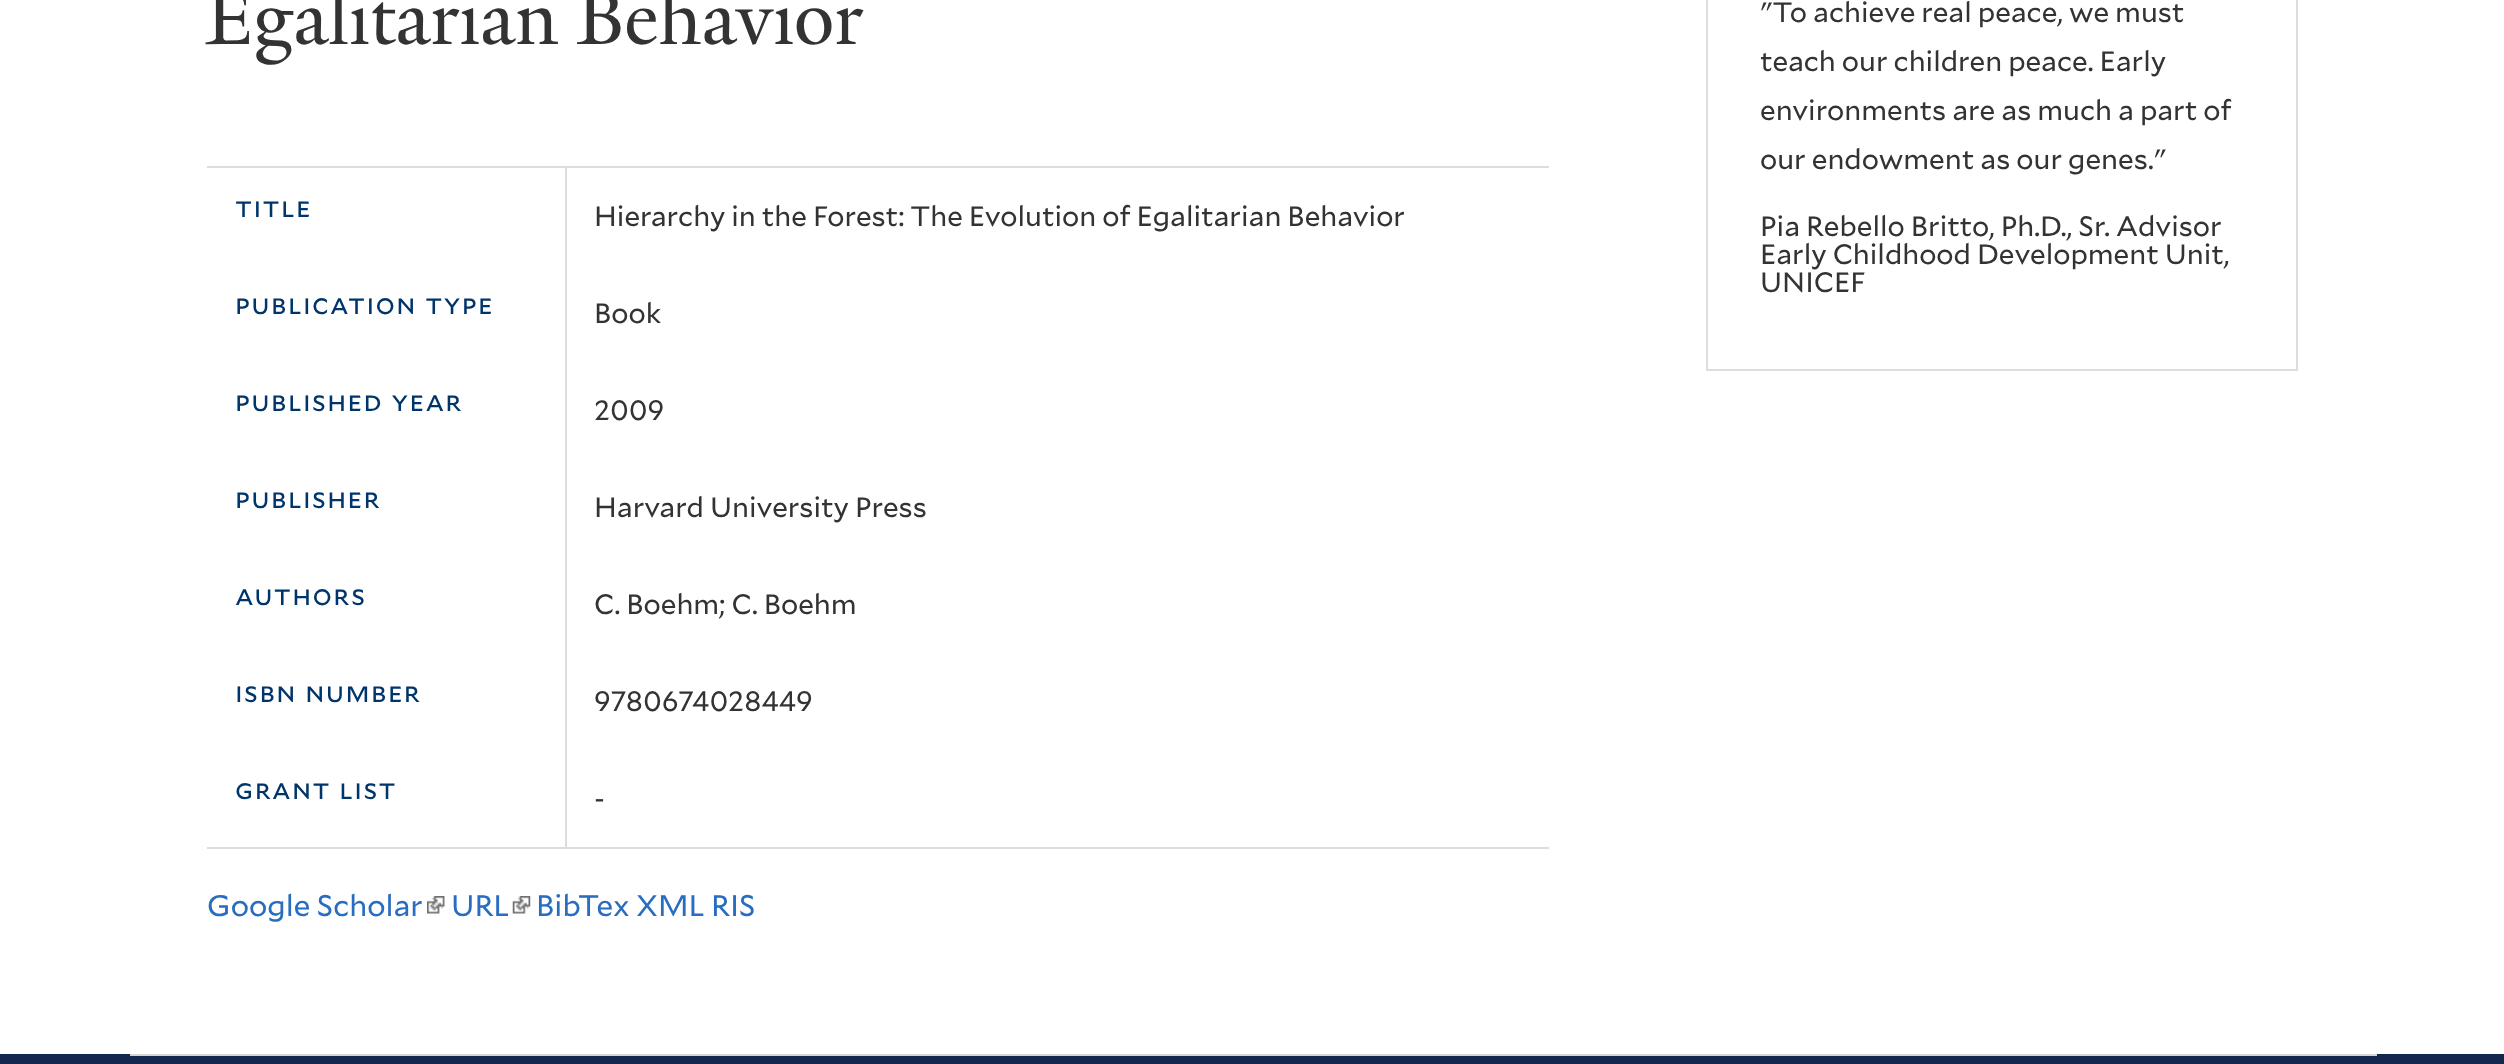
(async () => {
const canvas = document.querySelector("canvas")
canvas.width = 2504
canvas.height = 1064
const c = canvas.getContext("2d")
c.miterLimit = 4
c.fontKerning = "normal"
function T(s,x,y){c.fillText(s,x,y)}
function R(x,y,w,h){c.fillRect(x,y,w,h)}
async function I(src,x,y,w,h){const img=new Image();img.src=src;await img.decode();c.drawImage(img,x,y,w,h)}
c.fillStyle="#fff"
R(0,0,2504,1064)
c.font="80.5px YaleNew"
c.fillStyle="#333"
T("Egalitarian Behavior",206,44)
c.fillStyle="#ddd"
R(207,166,1342,2)
R(207,847,1342,2)
c.letterSpacing="1.4px"
c.font="28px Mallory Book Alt"
c.fillStyle="#00356b"
T("title",235,217)
c.letterSpacing="0px"
c.font="28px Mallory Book"
c.fillStyle="#333"
T("Hierarchy in the Forest: The Evolution of Egalitarian Behavior",594,226)
c.letterSpacing="1.4px"
c.wordSpacing="1px"
c.font="28px Mallory Book Alt"
c.fillStyle="#00356b"
T("publication type",235,314)
c.letterSpacing="0px"
c.wordSpacing="0px"
c.font="28px Mallory Book"
c.fillStyle="#333"
T("Book",594,323)
c.letterSpacing="1.4px"
c.wordSpacing="1px"
c.font="28px Mallory Book Alt"
c.fillStyle="#00356b"
T("published year",235,411)
c.letterSpacing="0px"
c.wordSpacing="0px"
c.font="28px Mallory Book"
c.fillStyle="#333"
T("2009",594,420)
c.letterSpacing="1.4px"
c.font="28px Mallory Book Alt"
c.fillStyle="#00356b"
T("publisher",235,508)
c.letterSpacing="0px"
c.font="28px Mallory Book"
c.fillStyle="#333"
T("Harvard University Press",594,517)
c.letterSpacing="1.4px"
c.font="28px Mallory Book Alt"
c.fillStyle="#00356b"
T("authors",235,605)
c.letterSpacing="0px"
c.font="28px Mallory Book"
c.fillStyle="#333"
T("C. Boehm; C. Boehm",594,614)
c.letterSpacing="1.4px"
c.wordSpacing="1px"
c.font="28px Mallory Book Alt"
c.fillStyle="#00356b"
T("isbn number",235,702)
c.letterSpacing="0px"
c.wordSpacing="0px"
c.font="28px Mallory Book"
c.fillStyle="#333"
T("9780674028449",594,711)
c.fillStyle="#ddd"
R(565,166,2,683)
c.letterSpacing="1.4px"
c.wordSpacing="1px"
c.font="28px Mallory Book Alt"
c.fillStyle="#00356b"
T("grant list",235,799)
c.letterSpacing="0px"
c.wordSpacing="0px"
c.font="28px Mallory Book"
c.fillStyle="#333"
T("-",594,808)
c.font="29.75px Mallory Book"
c.fillStyle="#286dc0"
T("Google Scholar",207,916)
await I("1.png",427,896,18,18)
T("URL",451,916)
await I("2.png",512,896,19,18)
T("BibTex XML",536,916)
T("RIS",711,916)
c.fillStyle="#ddd"
R(2296,0,2,371)
R(1706,369,592,2)
R(1706,0,2,371)
c.font="28px Mallory Book"
c.fillStyle="#333"
T("\"To achieve real peace, we must",1760,22)
T("teach our children peace. Early",1760,71)
T("environments are as much a part of",1760,120)
T("our endowment as our genes.\"",1760,169)
T("Pia Rebello Britto, Ph.D., Sr. Advisor",1760,236)
T("Early Childhood Development Unit,",1760,264)
T("UNICEF",1760,292)
c.fillStyle="#12284e"
R(0,1054,2504,10)
c.fillStyle="#d5d5d5"
R(130,1054,2247,2)
})()
